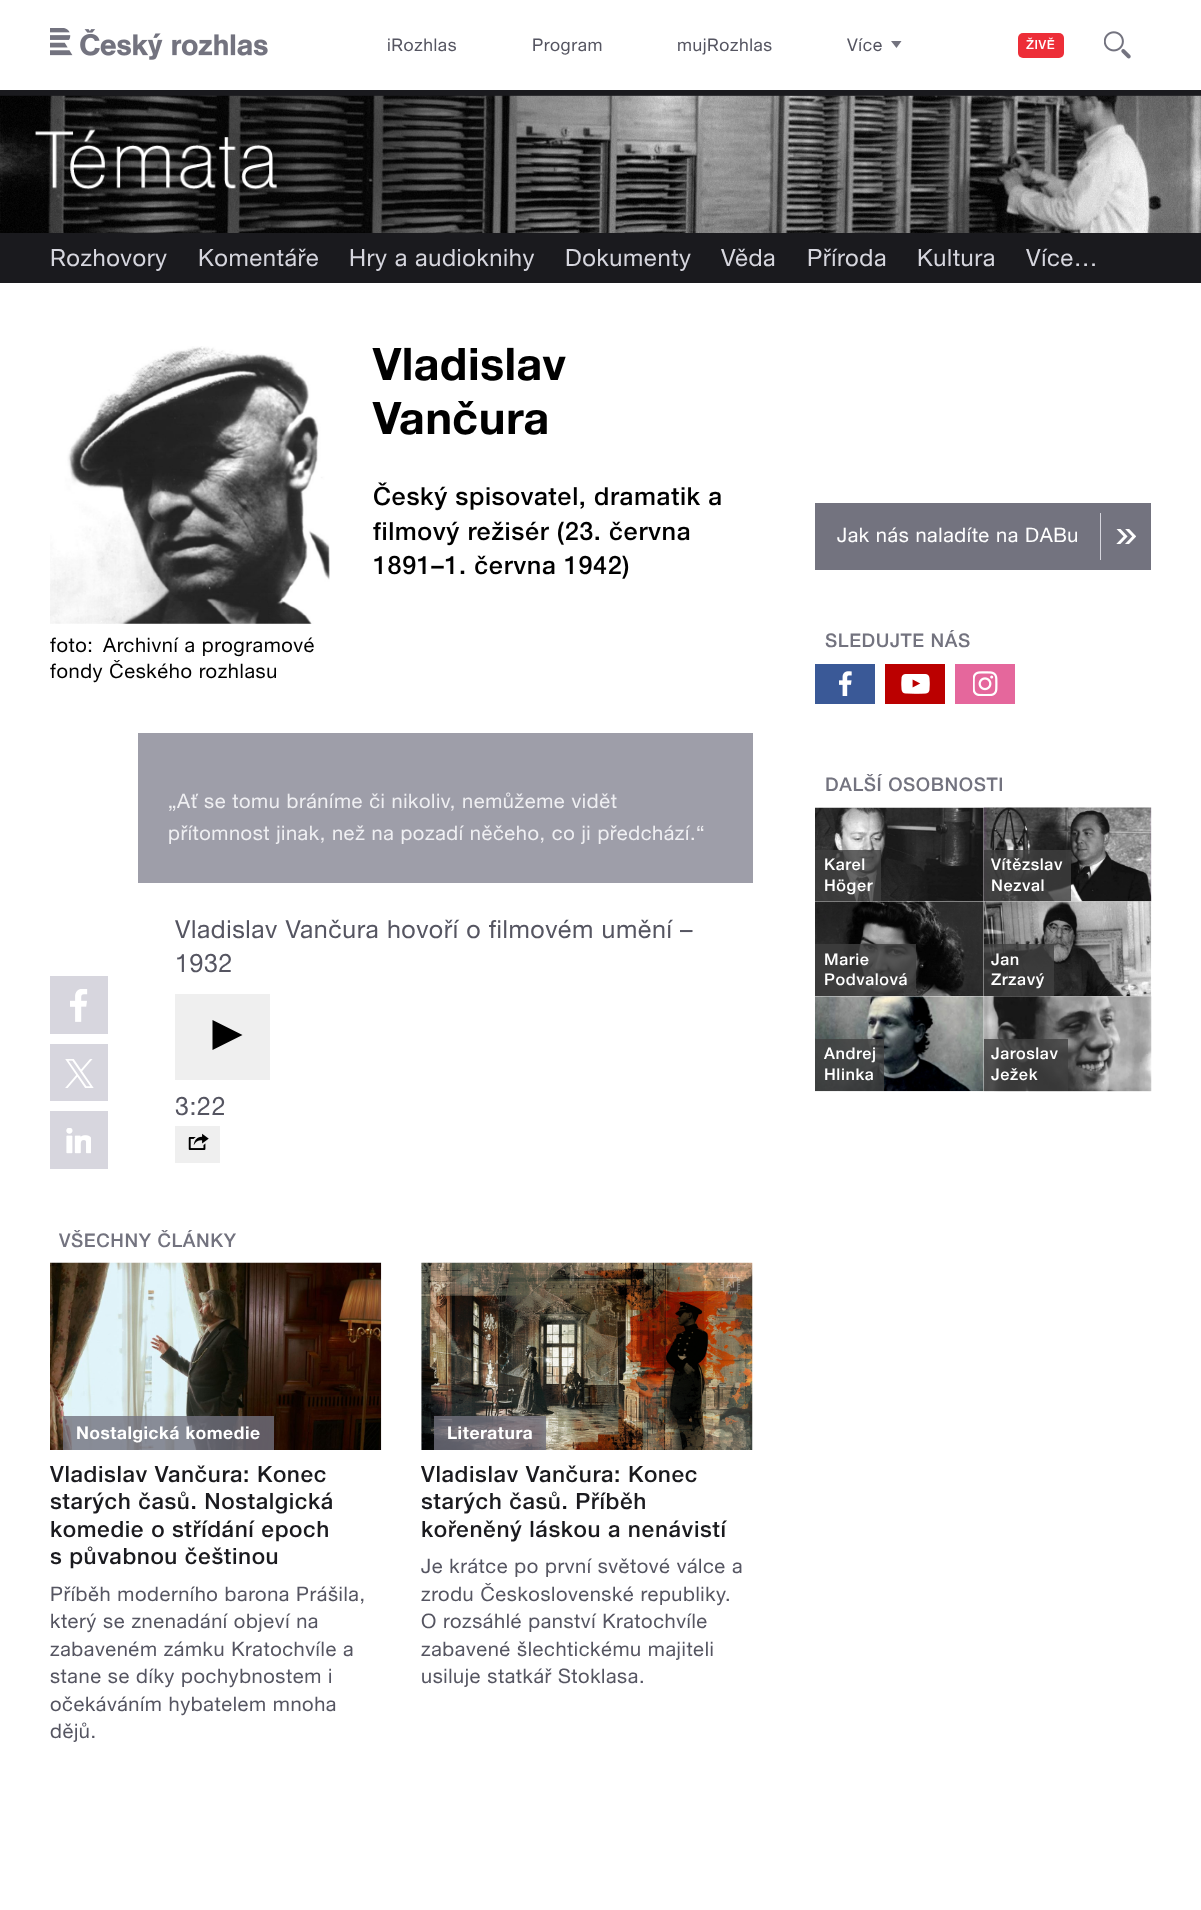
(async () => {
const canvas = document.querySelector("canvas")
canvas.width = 1201
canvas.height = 1910
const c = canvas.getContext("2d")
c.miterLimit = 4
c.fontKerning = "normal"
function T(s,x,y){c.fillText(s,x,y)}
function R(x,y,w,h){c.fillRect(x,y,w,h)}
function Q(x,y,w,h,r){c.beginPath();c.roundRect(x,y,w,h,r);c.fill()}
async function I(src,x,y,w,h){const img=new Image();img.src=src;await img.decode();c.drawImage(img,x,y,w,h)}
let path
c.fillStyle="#fff"
R(0,0,1201,1910)
await I("1.png",50,28,218,32)
c.letterSpacing="0.6px"
c.font="17.5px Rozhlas"
c.fillStyle="#555561"
T("iRozhlas",387,51)
T("Program",532,51)
T("mujRozhlas",677,51)
T("Více",847,51)
c.fillStyle="#73737f"
path = new Path2D("M891 41h10.5l-5 7z")
c.fill(path)
c.fillStyle="#ed2e38"
Q(1018,33,46,25,5)
c.font="500 12.5px Rozhlas"
c.fillStyle="#fff"
T("ŽIVĚ",1026,49)
await I("2.png",1104,31,27,28)
await I("4.png",0,95,1201,138)
await I("3.png",0,90,1201,100)
c.fillStyle="#1a1a1e"
R(0,233,1201,50)
c.font="23.75px Rozhlas"
c.fillStyle="#d6d6de"
T("Rozhovory",50,266)
T("Komentáře",198,266)
T("Hry a audioknihy",349,266)
T("Dokumenty",565,266)
T("Věda",721,266)
T("Příroda",807,266)
T("Kultura",917,266)
T("Více…",1026,266)
await I("5.png",50,346,280,278)
c.font="bold 45px Rozhlas"
c.fillStyle="#000"
T("Vladislav",373,380)
T("Vančura",373,434)
c.font="500 25px Rozhlas"
T("Český spisovatel, dramatik a",373,505)
T("filmový režisér (23. června",373,540)
T("1891–1. června 1942)",373,574)
c.font="20px Rozhlas"
T("foto:",50,652)
T("Archivní a programové",103,652)
T("fondy Českého rozhlasu",50,678)
c.fillStyle="#d7d6de"
R(50,976,58,58)
await I("6.png",70,989,18,33)
R(50,1044,58,57)
await I("7.png",65,1059,29,29)
R(50,1111,58,58)
await I("8.png",66,1128,25,26)
c.fillStyle="#9e9ea9"
R(138,733,615,150)
c.fillStyle="#efeff2"
T("„Ať se tomu bráníme či nikoliv, nemůžeme vidět",168,808)
T("přítomnost jinak, než na pozadí něčeho, co ji předchází.“",168,840)
c.font="25px Rozhlas"
c.fillStyle="#555561"
T("Vladislav Vančura hovoří o filmovém umění –",175,938)
T("1932",175,972)
c.fillStyle="#efefef"
R(175,994,95,86)
c.fillStyle="#000"
path = new Path2D("M212.5 1050v-30l30 15z")
c.fill(path)
c.fillStyle="#555561"
T("3:22",175,1115)
c.fillStyle="#efefef"
R(175,1126,45,37)
await I("9.png",188,1133,21,17)
c.font="500 18.75px Rozhlas"
c.fillStyle="#73737f"
T("VŠECHNY ČLÁNKY",59,1247)
await I("10.png",50,1262,332,188)
c.fillStyle="#72727ecc"
R(63,1416,211,34)
c.font="bold 17.5px Rozhlas"
c.fillStyle="#fff"
T("Nostalgická komedie",76,1439)
c.font="500 22.5px Rozhlas"
c.fillStyle="#1a1a1e"
T("Vladislav Vančura: Konec",50,1482)
T("starých časů. Nostalgická",50,1509)
T("komedie o střídání epoch",50,1537)
T("s půvabnou češtinou",50,1564)
c.font="20px Rozhlas"
c.fillStyle="#555561"
T("Příběh moderního barona Prášila,",50,1601)
T("který se znenadání objeví na",50,1628)
T("zabaveném zámku Kratochvíle a",50,1656)
T("stane se díky pochybnostem i",50,1683)
T("očekáváním hybatelem mnoha",50,1711)
T("dějů.",50,1738)
await I("11.png",421,1262,332,188)
c.fillStyle="#72727ecc"
R(434,1416,112,34)
c.font="bold 17.5px Rozhlas"
c.fillStyle="#fff"
T("Literatura",447,1439)
c.font="500 22.5px Rozhlas"
c.fillStyle="#1a1a1e"
T("Vladislav Vančura: Konec",421,1482)
T("starých časů. Příběh",421,1509)
T("kořeněný láskou a nenávistí",421,1537)
c.font="20px Rozhlas"
c.fillStyle="#555561"
T("Je krátce po první světové válce a",421,1573)
T("zrodu Československé republiky.",421,1601)
T("O rozsáhlé panství Kratochvíle",421,1628)
T("zabavené šlechtickému majiteli",421,1656)
T("usiluje statkář Stoklasa.",421,1683)
c.fillStyle="#73737f"
R(815,503,336,67)
c.fillStyle="#d6d6de"
R(1100,513,1,47)
c.fillStyle="#fff"
T("Jak nás naladíte na DABu",837,542)
await I("12.png",1116,529,20,15)
c.font="500 18.75px Rozhlas"
c.fillStyle="#73737f"
T("SLEDUJTE NÁS",825,647)
c.fillStyle="#3a5997"
R(815,664,60,40)
await I("13.png",839,671,13,25)
c.fillStyle="#b00"
R(885,664,60,40)
await I("14.png",901,674,29,20)
c.fillStyle="#e5679c"
R(955,664,60,40)
await I("15.png",973,671,25,25)
c.fillStyle="#73737f"
T("DALŠÍ OSOBNOSTI",825,791)
await I("16.png",815,807,169,95)
c.fillStyle="#404040cc"
R(815,850,66,51)
c.font="500 16.25px Rozhlas"
c.fillStyle="#fff"
T("Karel",824,870)
T("Höger",824,891)
await I("17.png",983,807,169,95)
c.fillStyle="#404040cc"
R(984,850,87,51)
c.fillStyle="#fff"
T("Vítězslav",991,870)
T("Nezval",991,891)
await I("18.png",815,901,169,96)
c.fillStyle="#404040cc"
R(815,944,101,52)
c.fillStyle="#fff"
T("Marie",824,965)
T("Podvalová",824,985)
await I("19.png",983,901,169,96)
c.fillStyle="#404040cc"
R(984,944,70,52)
c.fillStyle="#fff"
T("Jan",991,965)
T("Zrzavý",991,985)
await I("20.png",815,996,169,96)
c.fillStyle="#404040cc"
R(815,1039,69,52)
c.fillStyle="#fff"
T("Andrej",824,1059)
T("Hlinka",824,1080)
await I("21.png",983,996,169,96)
c.fillStyle="#404040cc"
R(984,1039,84,52)
c.fillStyle="#fff"
T("Jaroslav",991,1059)
T("Ježek",991,1080)
})()
